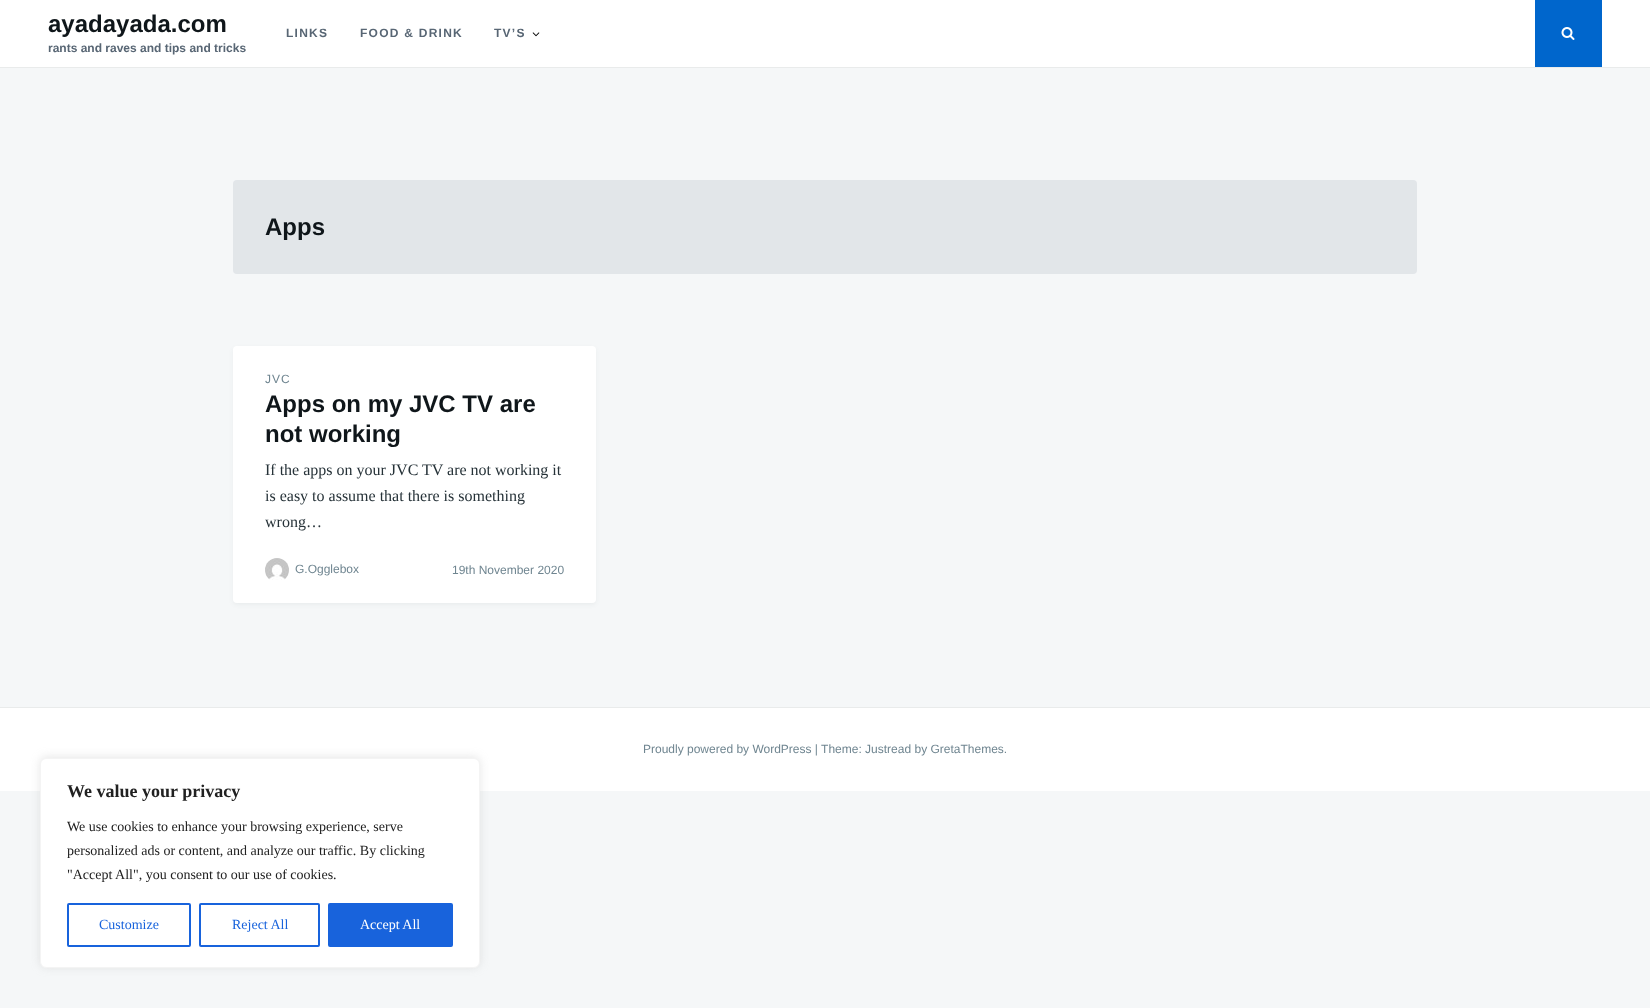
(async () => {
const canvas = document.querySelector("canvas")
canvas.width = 1650
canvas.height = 1008
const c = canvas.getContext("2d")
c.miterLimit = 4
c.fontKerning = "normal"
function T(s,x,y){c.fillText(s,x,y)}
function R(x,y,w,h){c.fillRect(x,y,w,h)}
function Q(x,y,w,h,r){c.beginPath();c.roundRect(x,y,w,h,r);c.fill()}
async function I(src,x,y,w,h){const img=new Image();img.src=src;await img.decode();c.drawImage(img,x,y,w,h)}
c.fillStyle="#f5f7f8"
R(0,0,1650,1008)
c.fillStyle="#fff"
R(0,0,1650,67)
c.fillStyle="#e9ebeb"
R(0,67,1650,1)
c.font="bold 24px Liberation Sans"
c.fillStyle="#0f161a"
T("ayadayada.com",48,32)
c.font="bold 12px Liberation Sans"
c.fillStyle="#586674"
T("rants and raves and tips and tricks",48,52)
c.letterSpacing="1.25px"
T("LINKS",286,37)
T("FOOD & DRINK",360,37)
T("TV’S",494,37)
await I("1.png",532,32,8,5)
c.fillStyle="#06c"
R(1535,0,67,67)
await I("2.png",1561,27,14,13)
c.fillStyle="#e2e6e9"
Q(233,180,1184,94,4)
c.letterSpacing="0px"
c.font="bold 24px Liberation Sans"
c.fillStyle="#0f161a"
T("Apps",265,235)
c.fillStyle="#2632380d"
c.filter="blur(2px)"
c.beginPath()
c.roundRect(233,348,363,257,4)
c.fill()
c.filter="none"
c.fillStyle="#fff"
Q(233,346,363,257,4)
c.letterSpacing="1px"
c.font="12px Liberation Sans"
c.fillStyle="#6f8590"
T("JVC",265,383)
c.letterSpacing="0px"
c.font="bold 24px Liberation Sans"
c.fillStyle="#0f161a"
T("Apps on my JVC TV are",265,412)
T("not working",265,442)
c.font="16px Liberation Serif"
c.fillStyle="#263238"
T("If the apps on your JVC TV are not working it",265,475)
T("is easy to assume that there is something",265,501)
T("wrong…",265,527)
await I("3.png",265,558,24,22)
c.font="12px Liberation Sans"
c.fillStyle="#6f8590"
T("G.Ogglebox",295,573)
T("19th November 2020",452,574)
c.fillStyle="#fff"
R(0,708,1650,83)
c.fillStyle="#e9ebeb"
R(0,707,1650,1)
c.fillStyle="#6f8590"
T("Proudly powered by WordPress | Theme: Justread by GretaThemes.",643,753)
c.fillStyle="#acabab4d"
c.filter="blur(5px)"
c.beginPath()
c.roundRect(40,757,440,210,6)
c.fill()
c.filter="none"
c.fillStyle="#fff"
c.beginPath()
c.roundRect(40.5,758.5,439,209,5.5)
c.fill()
c.strokeStyle="#f4f4f4"
c.stroke()
c.font="bold 18px Liberation Serif"
c.fillStyle="#212121"
T("We value your privacy",67,797)
c.font="14px Liberation Serif"
T("We use cookies to enhance your browsing experience, serve",67,831)
T("personalized ads or content, and analyze our traffic. By clicking",67,855)
T("\"Accept All\", you consent to our use of cookies.",67,879)
c.beginPath()
c.roundRect(68,904,122,42,1)
c.strokeStyle="#1863dc"
c.lineWidth=2
c.stroke()
c.fillStyle="#1863dc"
T("Customize",99,929)
c.beginPath()
c.roundRect(200,904,119,42,1)
c.stroke()
T("Reject All",232,929)
c.beginPath()
c.roundRect(329,904,123,42,1)
c.fill()
c.stroke()
c.fillStyle="#fff"
T("Accept All",360,929)
})()
